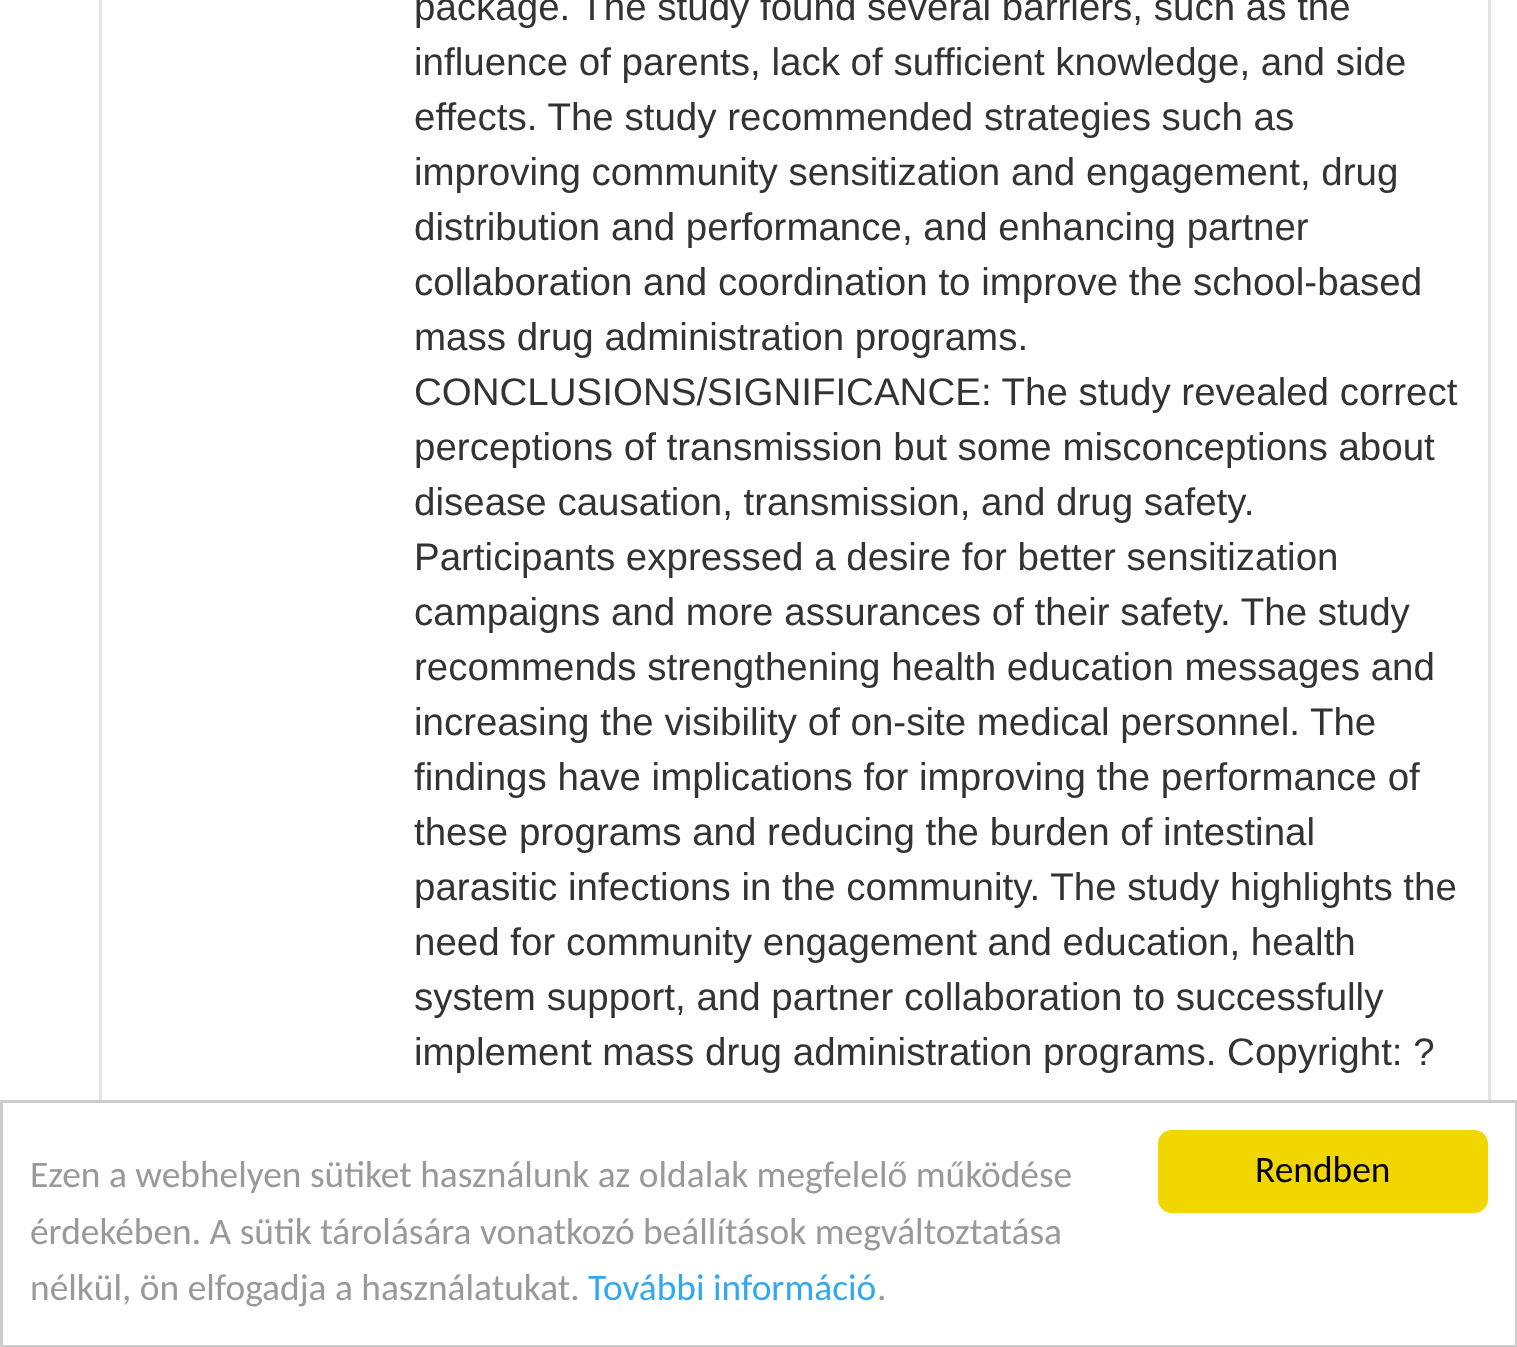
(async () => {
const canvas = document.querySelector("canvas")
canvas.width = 1517
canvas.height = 1347
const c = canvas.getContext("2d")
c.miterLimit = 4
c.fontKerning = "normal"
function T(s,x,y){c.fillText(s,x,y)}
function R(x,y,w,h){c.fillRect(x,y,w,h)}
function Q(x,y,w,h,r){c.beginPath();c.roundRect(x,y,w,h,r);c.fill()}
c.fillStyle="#fff"
R(0,0,1517,1347)
c.fillStyle="#e3e3e3"
R(1488,0,3,1100)
R(99,0,3,1100)
c.font="38.5px Liberation Sans"
c.fillStyle="#333"
T("package. The study found several barriers, such as the",414,20)
T("influence of parents, lack of sufficient knowledge, and side",414,75)
T("effects. The study recommended strategies such as",414,130)
T("improving community sensitization and engagement, drug",414,185)
T("distribution and performance, and enhancing partner",414,240)
T("collaboration and coordination to improve the school-based",414,295)
T("mass drug administration programs.",414,350)
T("CONCLUSIONS/SIGNIFICANCE: The study revealed correct",414,405)
T("perceptions of transmission but some misconceptions about",414,460)
T("disease causation, transmission, and drug safety.",414,515)
T("Participants expressed a desire for better sensitization",414,570)
T("campaigns and more assurances of their safety. The study",414,625)
T("recommends strengthening health education messages and",414,680)
T("increasing the visibility of on-site medical personnel. The",414,735)
T("findings have implications for improving the performance of",414,790)
T("these programs and reducing the burden of intestinal",414,845)
T("parasitic infections in the community. The study highlights the",414,900)
T("need for community engagement and education, health",414,955)
T("system support, and partner collaboration to successfully",414,1010)
T("implement mass drug administration programs. Copyright: ?",414,1065)
c.strokeStyle="#ccc"
c.lineWidth=3
c.strokeRect(1.5,1101.5,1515,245)
c.font="37.4px Carlito"
c.fillStyle="#999"
T("Ezen a webhelyen sütiket használunk az oldalak megfelelő működése",30,1187)
T("érdekében. A sütik tárolására vonatkozó beállítások megváltoztatása",30,1244)
T("nélkül, ön elfogadja a használatukat.",30,1300)
c.fillStyle="#31a8f0"
T("További információ",588,1300)
c.fillStyle="#999"
T(".",877,1300)
c.fillStyle="#f1d600"
Q(1158,1130,330,83,14)
c.fillStyle="#000"
T("Rendben",1255,1182)
})()
